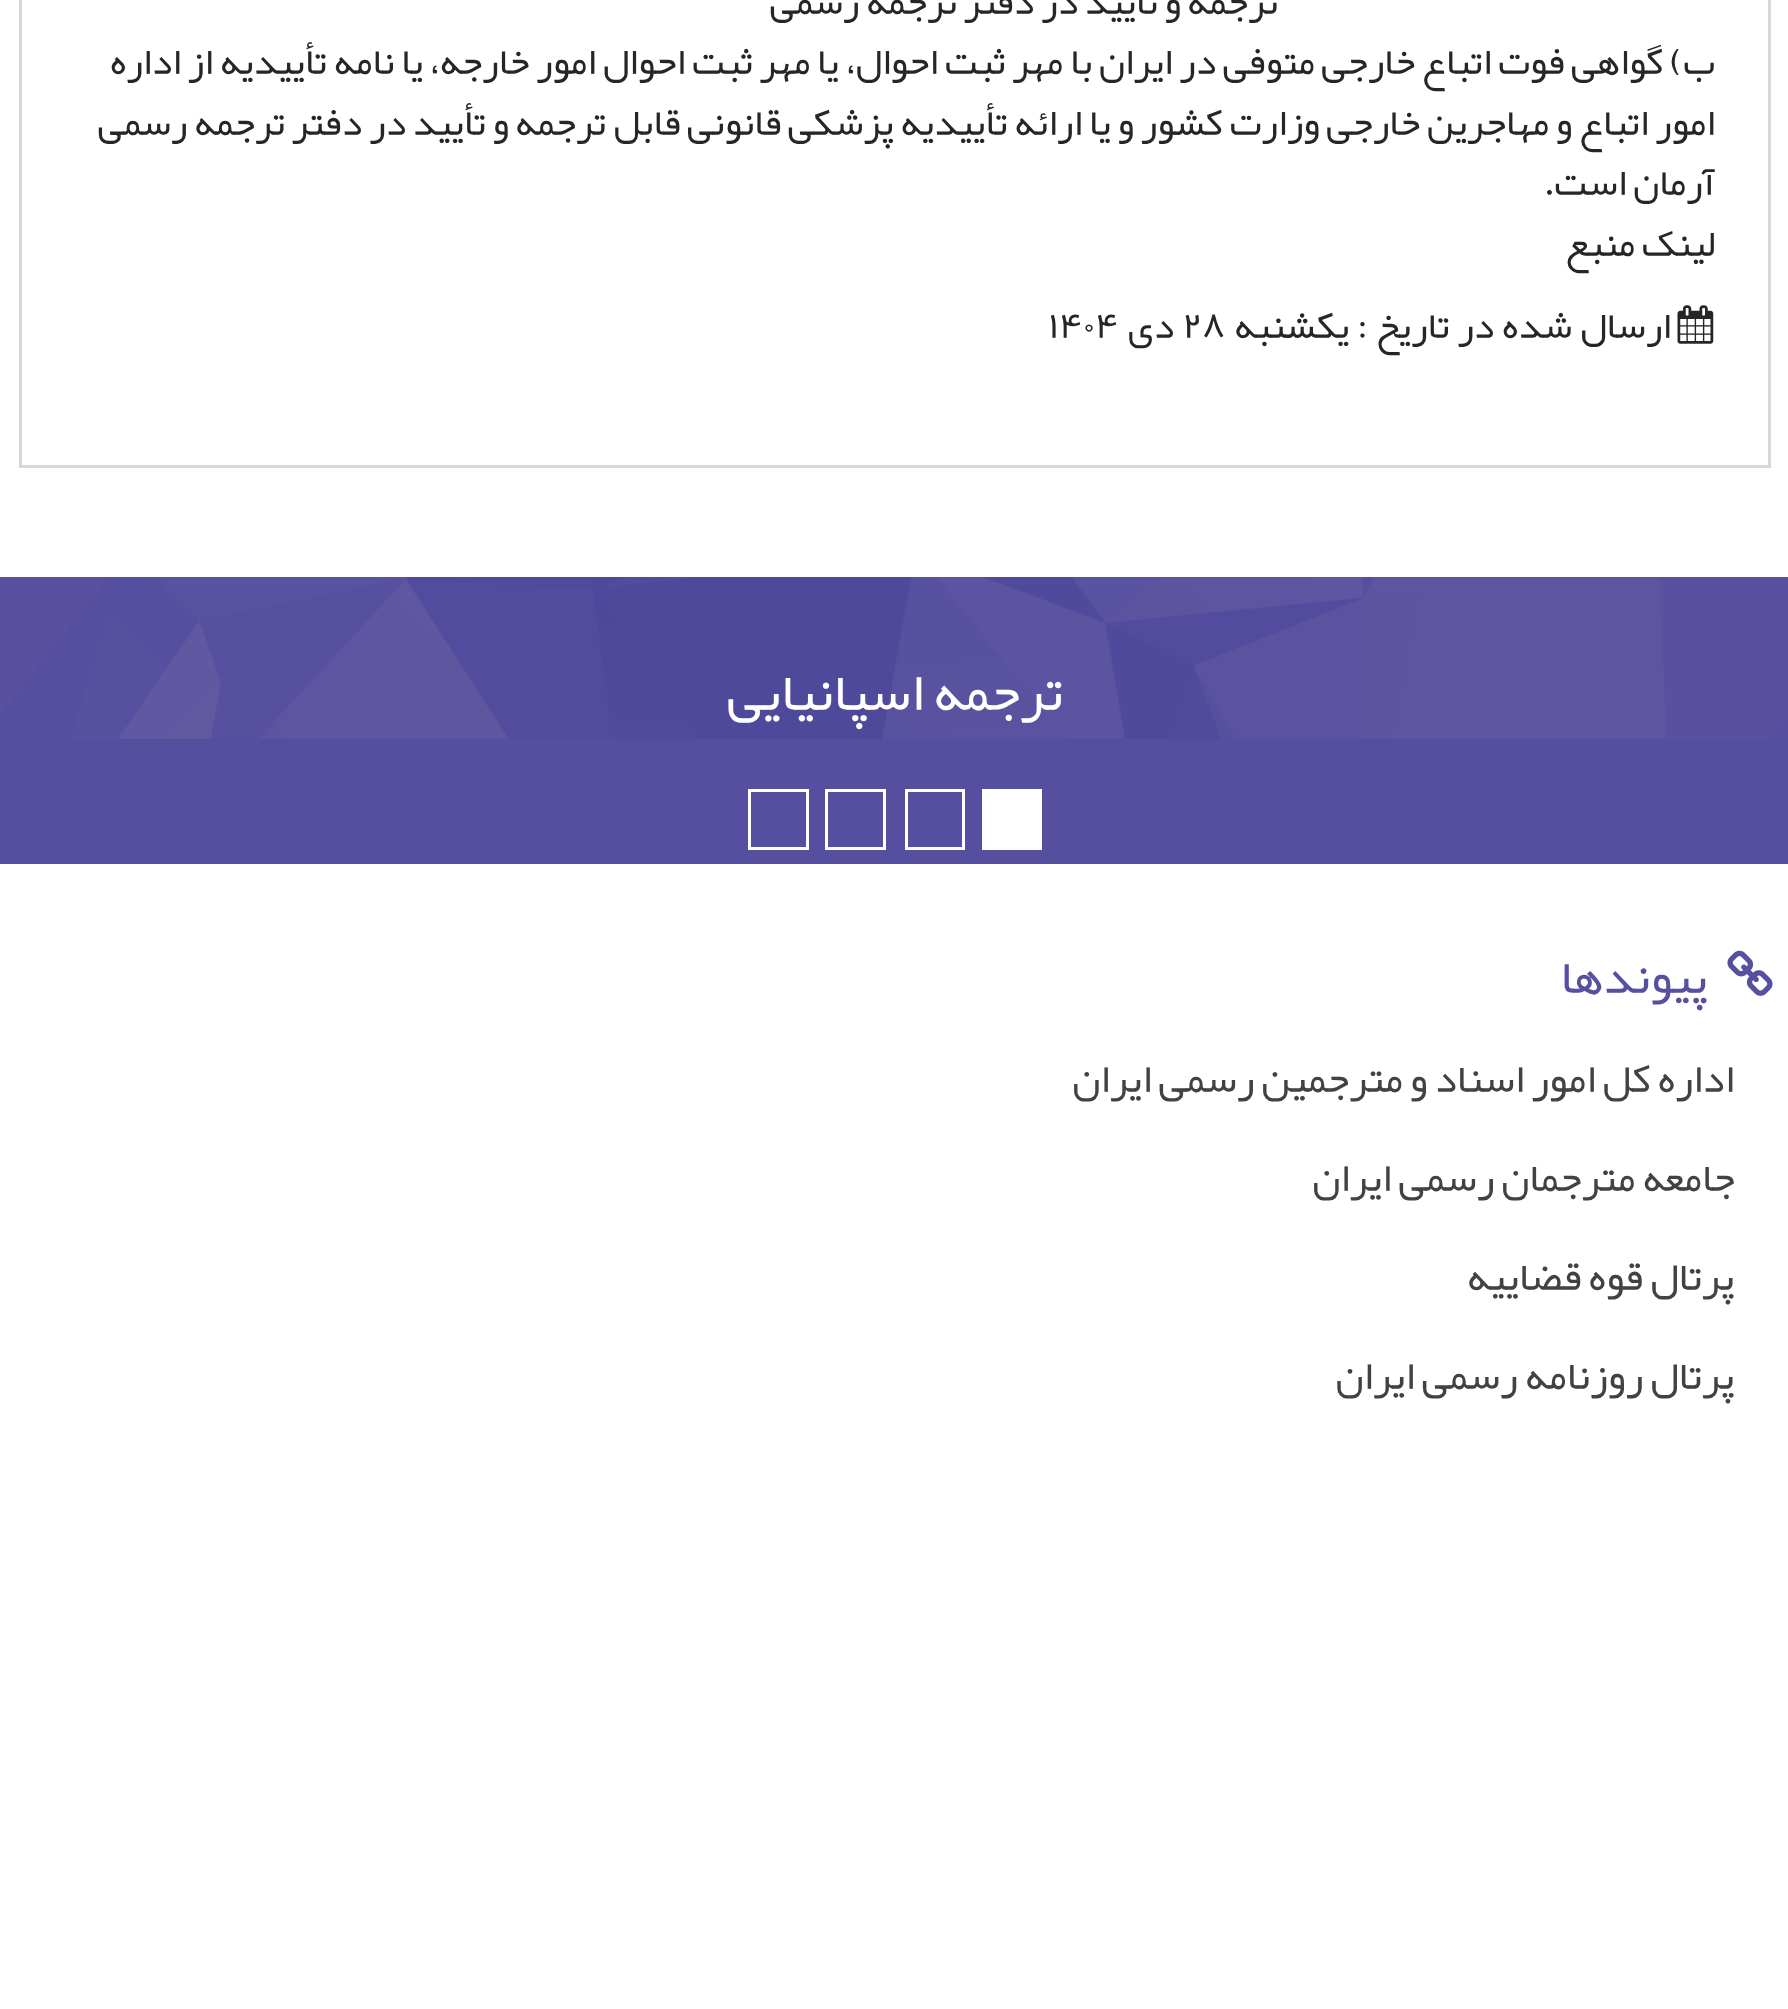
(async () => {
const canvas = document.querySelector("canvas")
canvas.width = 1788
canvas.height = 2009
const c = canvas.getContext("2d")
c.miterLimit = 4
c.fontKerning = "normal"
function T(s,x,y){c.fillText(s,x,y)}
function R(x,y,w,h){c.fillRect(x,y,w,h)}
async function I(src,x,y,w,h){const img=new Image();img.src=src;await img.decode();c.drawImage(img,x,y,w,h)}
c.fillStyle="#fff"
R(0,0,1788,2009)
c.strokeStyle="#d8d8d8"
c.lineWidth=3
c.strokeRect(20.5,-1.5,1749,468)
c.direction="rtl"
c.font="38.5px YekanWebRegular"
c.fillStyle="#262626"
T("ترجمه",1278,14)
T("و تأیید در",1181,14)
T("دفتر ترجمه رسمی",1034,14)
T("ب) گواهی فوت اتباع خارجی متوفی در ایران با",1715,74)
T("مهر ثبت احوال",1063,74)
T("، یا مهر ثبت احوال امور خارجه، یا نامه تأییدیه از اداره",855,74)
T("امور اتباع و مهاجرین خارجی وزارت کشور و یا ارائه تأییدیه پزشکی قانونی قابل",1715,135)
T("ترجمه",606,135)
T("و تأیید در",509,135)
T("دفتر ترجمه رسمی",362,135)
T("آرمان است.",1715,195)
T("لینک منبع",1715,256)
await I("1.png",1677,305,37,39)
c.wordSpacing="1.25px"
T("ارسال شده در تاریخ : یکشنبه",1671,338)
c.wordSpacing="0px"
c.direction="ltr"
T("۲۸",1182,338)
c.direction="rtl"
T("دی",1174,338)
c.direction="ltr"
T("۱۴۰۴",1048,338)
c.fillStyle="#564f9f"
R(0,739,1788,125)
await I("2.png",0,577,1788,162)
c.direction="rtl"
c.font="55px YekanWebRegular"
c.fillStyle="#fff"
T("ترجمه اسپانیایی",1063,710)
R(982,789,60,61)
c.strokeStyle="#fff"
c.strokeRect(906.5,790.5,57,58)
c.strokeRect(826.5,790.5,58,58)
c.strokeRect(749.5,790.5,58,58)
await I("3.png",1727,950,46,46)
c.font="49.5px YekanWebRegular"
c.fillStyle="#56509f"
T("پیوندها",1707,993)
c.font="41.25px YekanWebRegular"
c.fillStyle="#424242"
T("اداره کل امور اسناد و مترجمین رسمی ایران",1734,1092)
T("جامعه مترجمان رسمی ایران",1735,1191)
T("پرتال قوه قضاییه",1734,1290)
T("پرتال روزنامه رسمی ایران",1734,1389)
})()
